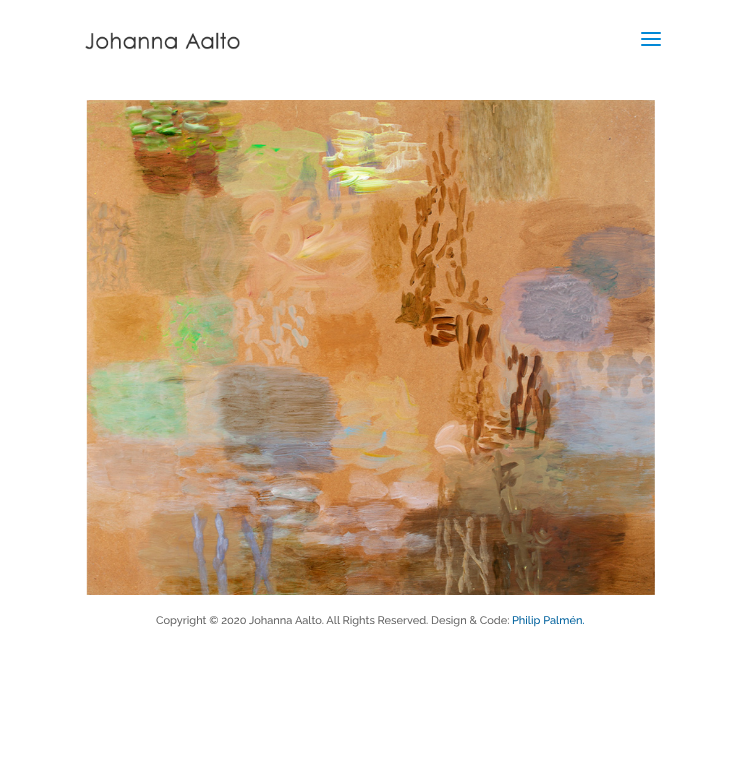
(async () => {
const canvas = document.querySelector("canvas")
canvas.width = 741
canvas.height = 759
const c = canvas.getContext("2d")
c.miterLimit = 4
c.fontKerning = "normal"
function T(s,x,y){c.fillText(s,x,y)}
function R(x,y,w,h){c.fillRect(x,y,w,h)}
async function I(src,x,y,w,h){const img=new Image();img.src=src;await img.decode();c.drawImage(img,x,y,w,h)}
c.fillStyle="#fff"
R(0,0,741,759)
await I("1.png",85,32,155,18)
await I("2.png",641,32,20,14)
await I("3.png",86,100,569,495)
c.font="500 16px Raleway"
c.fillStyle="#c8975e"
T("r",492,113)
c.font="500 11px Raleway"
c.fillStyle="#666"
T("Copyright © 2020 Johanna Aalto. All Rights Reserved. Design & Code:",156,624)
c.fillStyle="#01629e"
T("Philip Palmén.",512,624)
})()
